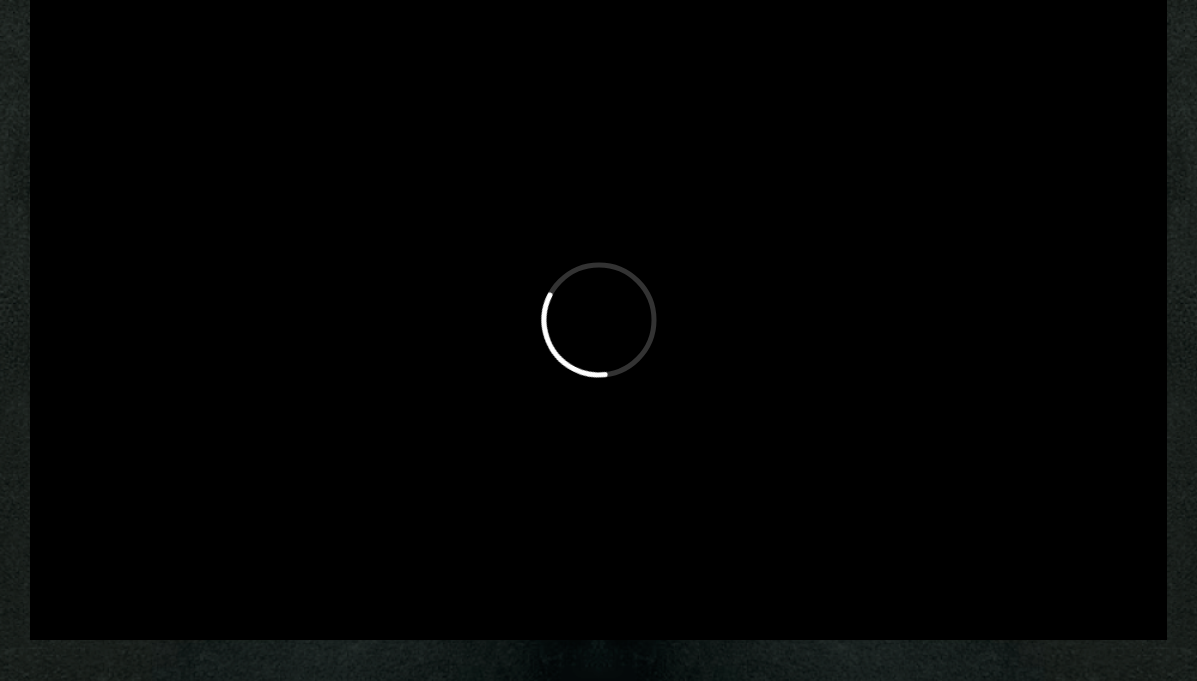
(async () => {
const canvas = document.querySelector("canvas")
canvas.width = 1197
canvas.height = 681
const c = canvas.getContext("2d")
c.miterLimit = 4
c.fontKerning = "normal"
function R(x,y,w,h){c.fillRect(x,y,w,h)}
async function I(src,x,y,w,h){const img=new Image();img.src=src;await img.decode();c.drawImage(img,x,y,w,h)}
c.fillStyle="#fff"
R(0,0,1197,681)
await I("1.png",0,0,1197,681)
await I("2.png",30,0,1137,640)
})()
